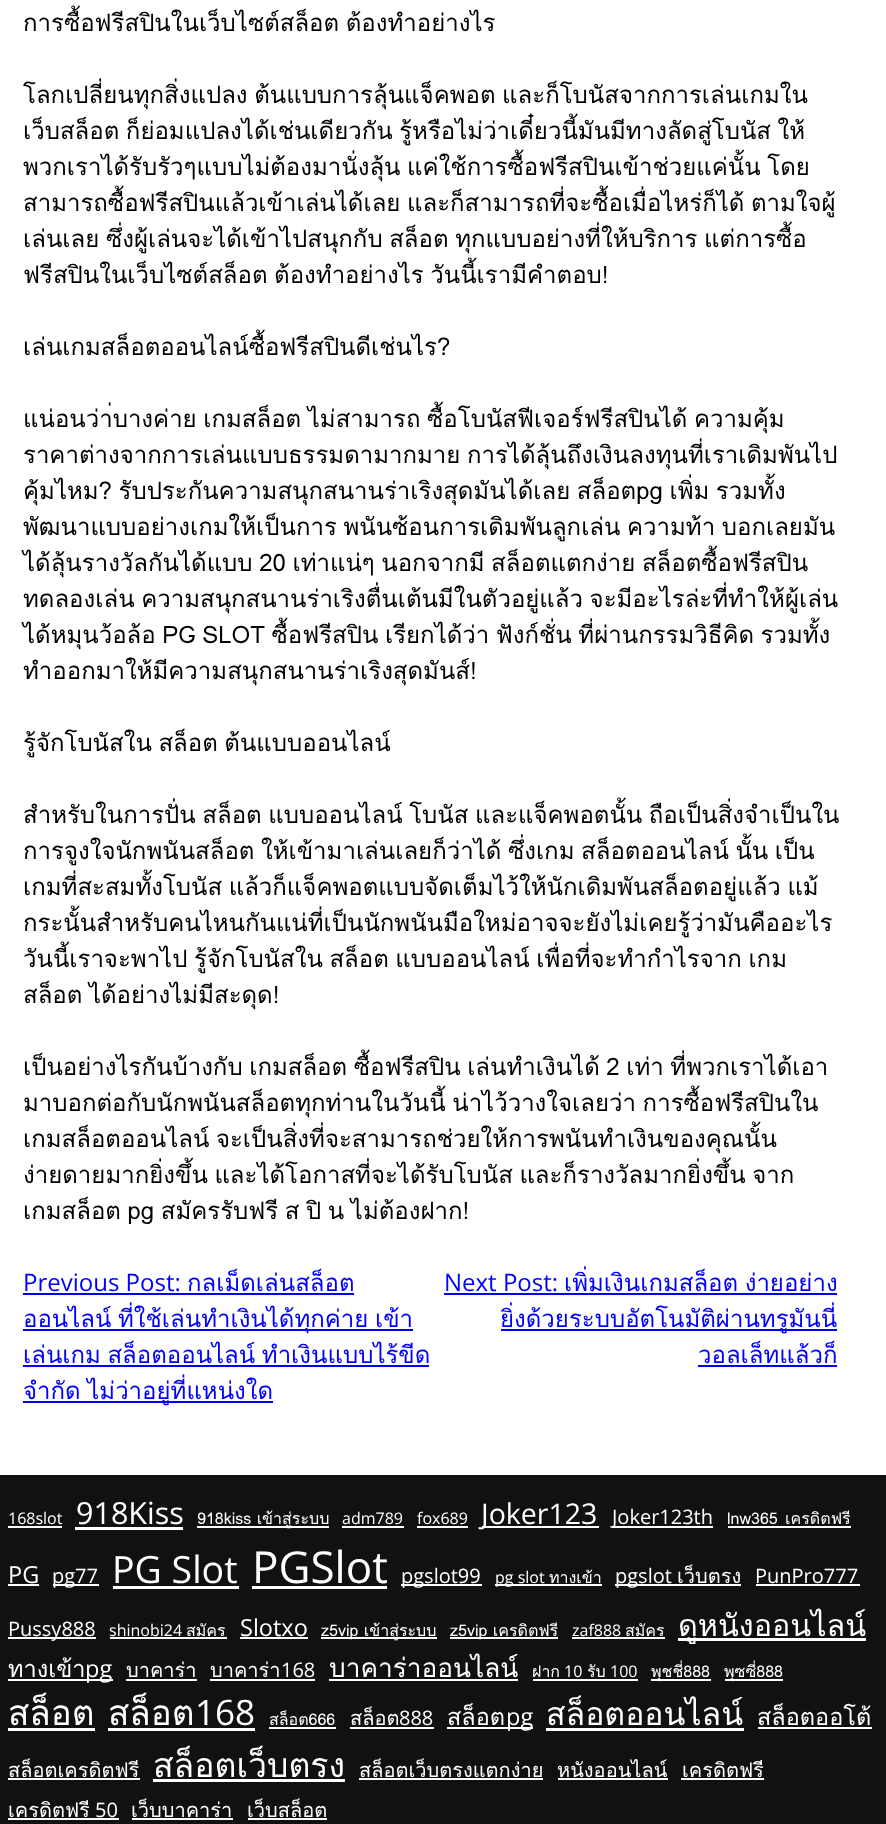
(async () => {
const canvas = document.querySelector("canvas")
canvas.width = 886
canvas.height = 1824
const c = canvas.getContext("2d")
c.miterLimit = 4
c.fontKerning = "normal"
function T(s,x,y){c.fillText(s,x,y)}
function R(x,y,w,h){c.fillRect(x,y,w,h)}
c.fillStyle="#fff"
R(0,0,886,1824)
c.wordSpacing="-1.5px"
c.font="24px Loma"
c.fillStyle="#000"
T("การซื้อฟรีสปินในเว็บไซต์สล็อต ต้องทำอย่างไร",23,31)
T("โลกเปลี่ยนทุกสิ่งแปลง ต้นแบบการลุ้นแจ็คพอต และก็โบนัสจากการเล่นเกมใน",23,103)
T("เว็บสล็อต ก็ย่อมแปลงได้เช่นเดียวกัน รู้หรือไม่ว่าเดี๋ยวนี้มันมีทางลัดสู่โบนัส ให้",23,139)
T("พวกเราได้รับรัวๆแบบไม่ต้องมานั่งลุ้น แค่ใช้การซื้อฟรีสปินเข้าช่วยแค่นั้น โดย",23,175)
T("สามารถซื้อฟรีสปินแล้วเข้าเล่นได้เลย และก็สามารถที่จะซื้อเมื่อไหร่ก็ได้ ตามใจผู้",23,211)
T("เล่นเลย ซึ่งผู้เล่นจะได้เข้าไปสนุกกับ สล็อต ทุกแบบอย่างที่ให้บริการ แต่การซื้อ",23,247)
T("ฟรีสปินในเว็บไซต์สล็อต ต้องทำอย่างไร วันนี้เรามีคำตอบ!",23,283)
c.wordSpacing="0px"
T("เล่นเกมสล็อตออนไลน์ซื้อฟรีสปินดีเช่นไร?",23,355)
c.wordSpacing="-1.5px"
T("แน่อนว่า่บางค่าย เกมสล็อต ไม่สามารถ ซื้อโบนัสฟีเจอร์ฟรีสปินได้ ความคุ้ม",23,427)
T("ราคาต่างจากการเล่นแบบธรรมดามากมาย การได้ลุ้นถึงเงินลงทุนที่เราเดิมพันไป",23,463)
T("คุ้มไหม? รับประกันความสนุกสนานร่าเริงสุดมันได้เลย สล็อตpg เพิ่ม รวมทั้ง",23,499)
T("พัฒนาแบบอย่างเกมให้เป็นการ พนันซ้อนการเดิมพันลูกเล่น ความท้า บอกเลยมัน",23,535)
T("ได้ลุ้นรางวัลกันได้แบบ 20 เท่าแน่ๆ นอกจากมี สล็อตแตกง่าย สล็อตซื้อฟรีสปิน",23,571)
T("ทดลองเล่น ความสนุกสนานร่าเริงตื่นเต้นมีในตัวอยู่แล้ว จะมีอะไรล่ะที่ทำให้ผู้เล่น",23,607)
T("ได้หมุนว้อล้อ PG SLOT ซื้อฟรีสปิน เรียกได้ว่า ฟังก์ชั่น ที่ผ่านกรรมวิธีคิด รวมทั้ง",23,643)
c.wordSpacing="0px"
T("ทำออกมาให้มีความสนุกสนานร่าเริงสุดมันส์!",23,679)
c.wordSpacing="-1.5px"
T("รู้จักโบนัสใน สล็อต ต้นแบบออนไลน์",23,751)
T("สำหรับในการปั่น สล็อต แบบออนไลน์ โบนัส และแจ็คพอตนั้น ถือเป็นสิ่งจำเป็นใน",23,823)
T("การจูงใจนักพนันสล็อต ให้เข้ามาเล่นเลยก็ว่าได้ ซึ่งเกม สล็อตออนไลน์ นั้น เป็น",23,859)
T("เกมที่สะสมทั้งโบนัส แล้วก็แจ็คพอตแบบจัดเต็มไว้ให้นักเดิมพันสล็อตอยู่แล้ว แม้",23,895)
c.wordSpacing="0px"
T("กระนั้นสำหรับคนไหนกันแน่ที่เป็นนักพนันมือใหม่อาจจะยังไม่เคยรู้ว่ามันคืออะไร",23,931)
c.wordSpacing="-1.5px"
T("วันนี้เราจะพาไป รู้จักโบนัสใน สล็อต แบบออนไลน์ เพื่อที่จะทำกำไรจาก เกม",23,967)
T("สล็อต ได้อย่างไม่มีสะดุด!",23,1003)
T("เป็นอย่างไรกันบ้างกับ เกมสล็อต ซื้อฟรีสปิน เล่นทำเงินได้ 2 เท่า ที่พวกเราได้เอา",23,1075)
T("มาบอกต่อกับนักพนันสล็อตทุกท่านในวันนี้ น่าไว้วางใจเลยว่า การซื้อฟรีสปินใน",23,1111)
T("เกมสล็อตออนไลน์ จะเป็นสิ่งที่จะสามารถช่วยให้การพนันทำเงินของคุณนั้น",23,1147)
T("ง่ายดายมากยิ่งขึ้น และได้โอกาสที่จะได้รับโบนัส และก็รางวัลมากยิ่งขึ้น จาก",23,1183)
T("เกมสล็อต pg สมัครรับฟรี ส ปิ น ไม่ต้องฝาก!",23,1219)
c.wordSpacing="0px"
c.font="24px Open Sans"
c.fillStyle="#00f"
T("Previous Post:",23,1291)
R(23,1293,331,2)
c.font="24px Loma"
T("กลเม็ดเล่นสล็อต",187,1291)
R(23,1329,390,2)
c.wordSpacing="-1.5px"
T("ออนไลน์ ที่ใช้เล่นทำเงินได้ทุกค่าย เข้า",23,1327)
T("เล่นเกม สล็อตออนไลน์ ทำเงินแบบไร้ขีด",23,1363)
R(23,1365,406,2)
R(23,1401,250,2)
T("จำกัด ไม่ว่าอยู่ที่แหน่งใด",23,1399)
c.wordSpacing="0px"
c.font="24px Open Sans"
T("Next Post:",444,1291)
R(444,1293,393,2)
c.wordSpacing="-1.5px"
c.font="24px Loma"
T("เพิ่มเงินเกมสล็อต ง่ายอย่าง",564,1291)
R(501,1329,336,2)
c.wordSpacing="0px"
T("ยิ่งด้วยระบบอัตโนมัติผ่านทรูมันนี่",500,1327)
T("วอลเล็ทแล้วก็",698,1363)
R(698,1365,139,2)
c.fillStyle="#111"
R(0,1475,886,349)
c.font="16px Open Sans"
c.fillStyle="#fff"
T("168slot",8,1524)
R(8,1526,54,2)
c.font="30.5px Open Sans"
T("918Kiss",76,1524)
R(75,1527,108,3)
R(197,1526,132,2)
c.font="16px Loma"
T("918kiss เข้าสู่ระบบ",197,1524)
c.font="16px Open Sans"
T("adm789",342,1524)
R(342,1526,62,2)
T("fox689",417,1524)
R(417,1526,51,2)
R(482,1526,117,2)
c.font="28.5px Open Sans"
T("Joker123",481,1524)
R(612,1526,101,2)
c.font="20px Open Sans"
T("Joker123th",612,1524)
c.wordSpacing="2px"
c.font="16px Loma"
T("lnw365 เครดิตฟรี",727,1524)
R(728,1526,123,2)
c.wordSpacing="0px"
c.font="23.5px Open Sans"
T("PG",8,1583)
R(8,1584,31,2)
R(53,1584,46,2)
c.font="20px Open Sans"
T("pg77",52,1583)
c.font="37.5px Open Sans"
T("PG Slot",112,1583)
R(113,1586,126,3)
c.font="44px Open Sans"
T("PGSlot",252,1583)
R(252,1586,135,3)
R(401,1584,81,2)
c.font="20px Open Sans"
T("pgslot99",401,1583)
R(495,1584,107,2)
c.font="16px Open Sans"
T("pg slot",495,1583)
c.font="16px Loma"
T("ทางเข้า",549,1583)
R(615,1584,126,2)
c.font="20px Open Sans"
T("pgslot",615,1583)
c.font="20px Loma"
T("เว็บตรง",677,1583)
c.font="20px Open Sans"
T("PunPro777",755,1583)
R(756,1584,104,2)
R(8,1637,88,2)
T("Pussy888",8,1636)
c.font="16px Open Sans"
T("shinobi24",109,1636)
R(110,1637,117,2)
c.font="16px Loma"
T("สมัคร",186,1636)
c.font="23.5px Open Sans"
T("Slotxo",240,1636)
R(240,1637,68,2)
R(321,1637,116,2)
c.font="16px Loma"
T("z5vip เข้าสู่ระบบ",321,1636)
R(450,1637,108,2)
T("z5vip เครดิตฟรี",450,1636)
c.font="16px Open Sans"
T("zaf888",572,1636)
R(572,1637,93,2)
c.font="16px Loma"
T("สมัคร",625,1636)
R(678,1638,188,3)
c.font="30.5px Loma"
T("ดูหนังออนไลน์",678,1636)
c.font="23.5px Loma"
T("ทางเข้า",8,1677)
R(8,1679,105,2)
c.font="23.5px Open Sans"
T("pg",85,1677)
c.font="20px Loma"
T("บาคาร่า",126,1677)
R(126,1679,71,2)
T("บาคาร่า",210,1677)
c.font="20px Open Sans"
T("168",281,1677)
R(210,1679,105,2)
c.font="26.25px Loma"
T("บาคาร่าออนไลน์",329,1677)
R(329,1679,189,2)
c.font="16px Loma"
T("ฝาก",532,1677)
c.font="16px Open Sans"
T("10",564,1677)
R(533,1679,105,2)
c.font="16px Loma"
T("รับ",587,1677)
c.font="16px Open Sans"
T("100",610,1677)
R(651,1679,60,2)
c.font="16px Loma"
T("พุชชี่888",651,1677)
R(725,1679,58,2)
T("พุซซี่888",724,1677)
c.font="35px Loma"
T("สล็อต",8,1725)
R(8,1728,87,3)
T("สล็อต",108,1725)
c.font="35px Open Sans"
T("168",195,1725)
R(108,1728,147,3)
c.font="16px Loma"
T("สล็อต666",269,1725)
R(269,1727,67,2)
c.font="20px Loma"
T("สล็อต",350,1725)
c.font="20px Open Sans"
T("888",399,1725)
R(350,1727,84,2)
c.font="23.5px Loma"
T("สล็อต",447,1725)
R(447,1727,86,2)
c.font="23.5px Open Sans"
T("pg",506,1725)
c.font="32px Loma"
T("สล็อตออนไลน์",546,1725)
R(546,1728,198,3)
c.font="23.5px Loma"
T("สล็อตออโต้",757,1725)
R(758,1727,114,2)
c.font="20px Loma"
T("สล็อตเครดิตฟรี",8,1777)
R(8,1778,132,2)
c.font="33.75px Loma"
T("สล็อตเว็บตรง",153,1777)
R(153,1779,192,3)
c.font="20px Loma"
T("สล็อตเว็บตรงแตกง่าย",359,1777)
R(359,1778,184,2)
T("หนังออนไลน์",557,1777)
R(558,1778,110,2)
T("เครดิตฟรี",682,1777)
R(681,1778,83,2)
T("เครดิตฟรี",8,1817)
c.font="20px Open Sans"
T("50",95,1817)
R(8,1818,111,2)
c.font="20px Loma"
T("เว็บบาคาร่า",131,1817)
R(132,1818,101,2)
T("เว็บสล็อต",247,1817)
R(248,1818,79,2)
})()
